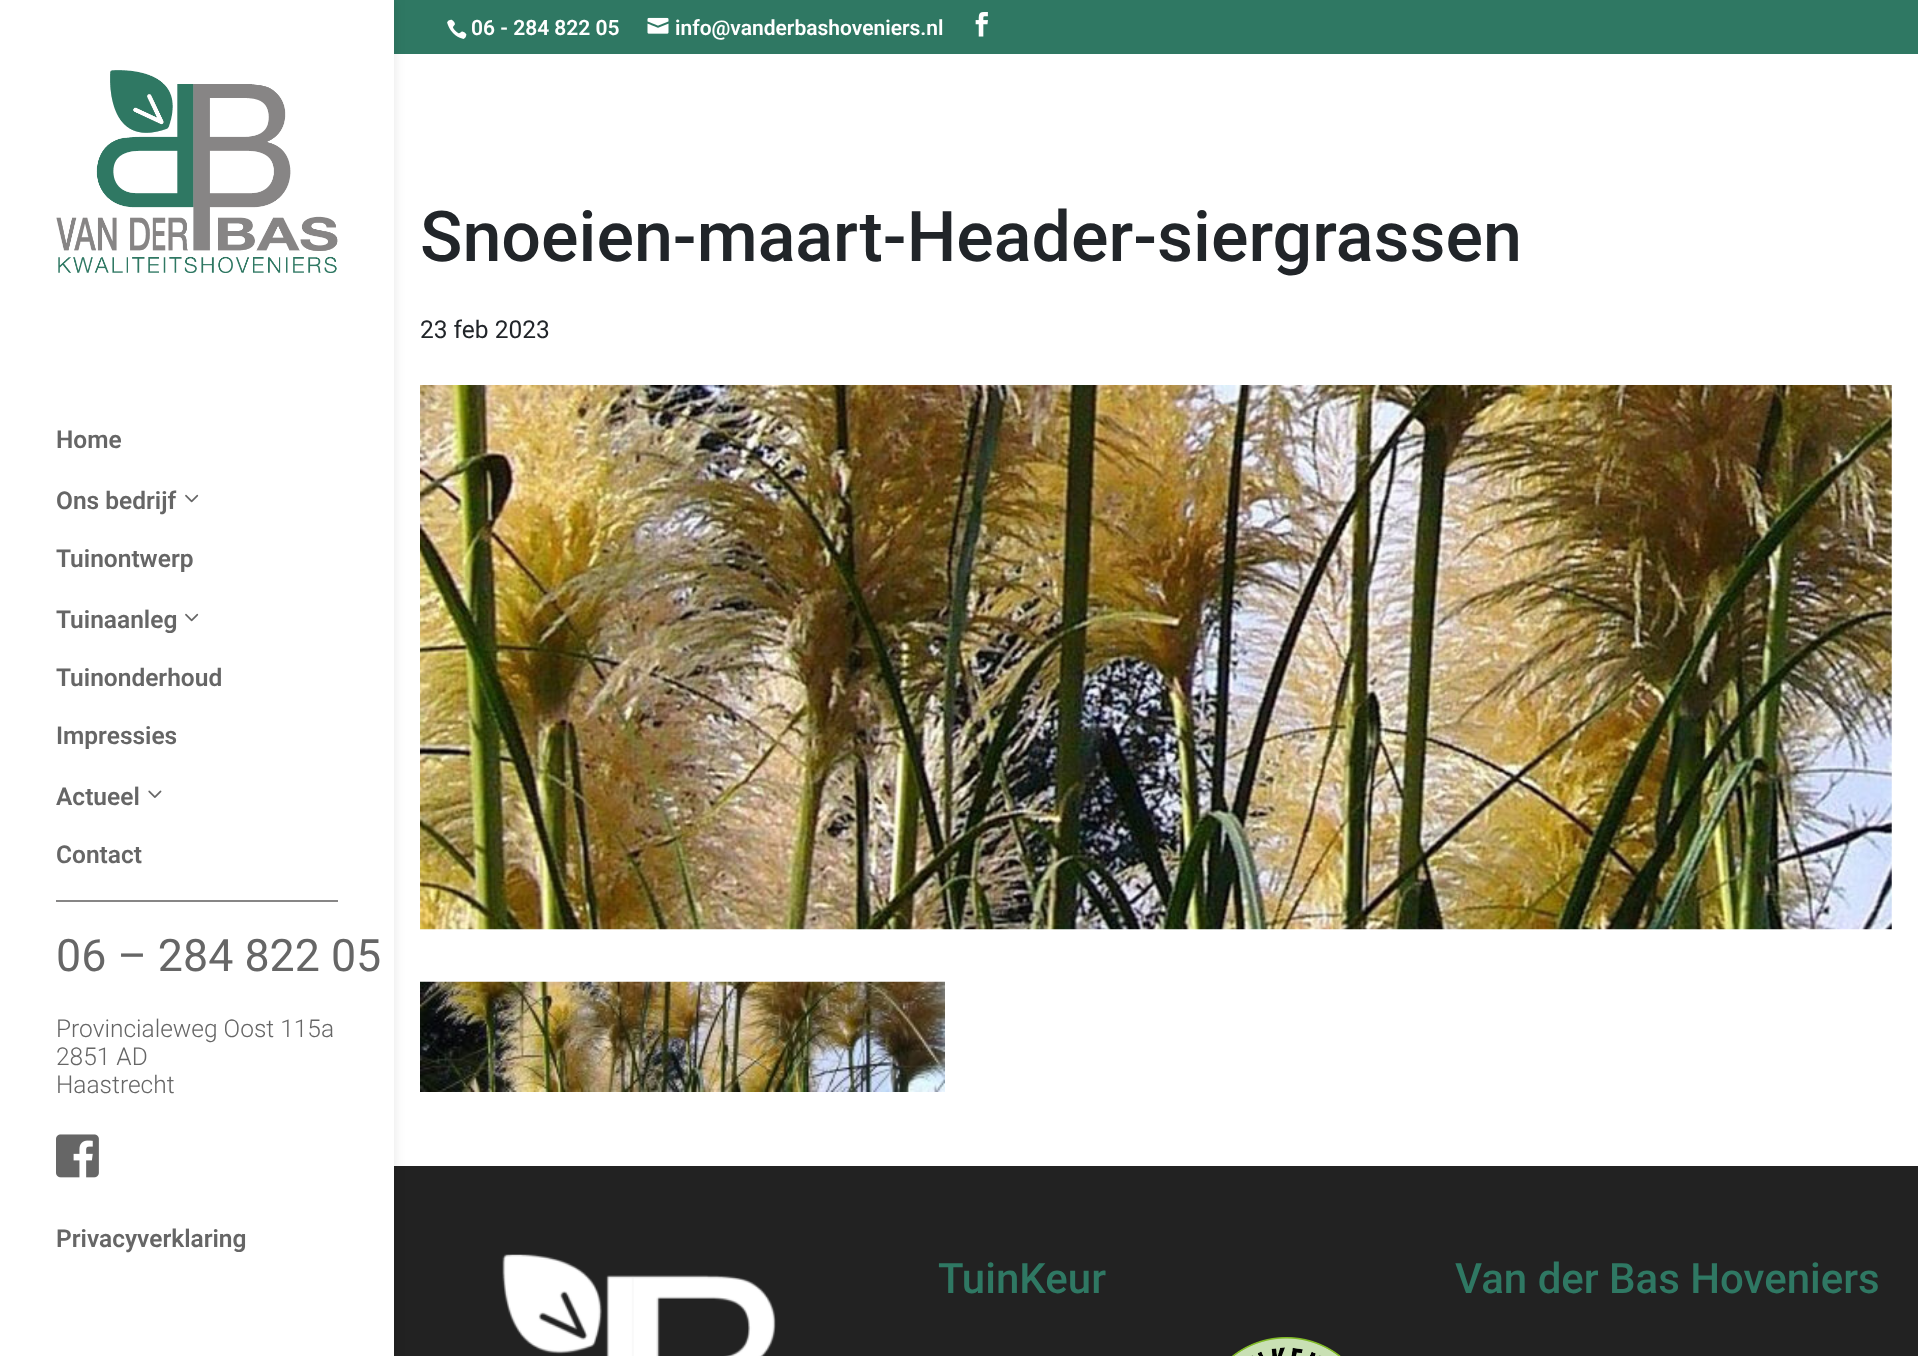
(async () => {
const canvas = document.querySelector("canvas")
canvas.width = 1918
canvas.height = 1356
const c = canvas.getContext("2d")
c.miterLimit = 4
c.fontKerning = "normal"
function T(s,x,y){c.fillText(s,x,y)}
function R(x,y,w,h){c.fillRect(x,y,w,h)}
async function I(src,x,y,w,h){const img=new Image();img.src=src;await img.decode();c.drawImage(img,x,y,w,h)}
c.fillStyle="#fff"
R(0,0,1918,1356)
c.fillStyle="#2f7863"
R(394,0,1524,54)
await I("1.png",447,19,20,20)
c.font="600 21px Roboto"
c.fillStyle="#fff"
T("06 - 284 822 05",471,35)
await I("2.png",647,17,22,17)
T("info@vanderbashoveniers.nl",675,35)
await I("3.png",975,12,13,25)
c.fillStyle="#222"
R(394,1166,1524,190)
c.fillStyle="#0000001a"
c.filter="blur(6px)"
c.beginPath()
c.rect(0,0,394,1356)
c.fill()
c.filter="none"
c.fillStyle="#fff"
R(0,0,394,1356)
await I("4.png",56,70,282,203)
c.font="600 24.5px Roboto"
c.fillStyle="#666"
T("Home",56,448)
T("Ons bedrijf",56,509)
await I("5.png",185,494,14,9)
T("Tuinontwerp",56,567)
T("Tuinaanleg",56,628)
await I("5.png",185,613,14,9)
T("Tuinonderhoud",56,686)
T("Impressies",56,744)
T("Actueel",56,805)
await I("6.png",148,790,14,8)
T("Contact",56,863)
c.fillStyle="#878686"
R(56,900,282,2)
c.font="44.75px Roboto"
c.fillStyle="#666"
T("06 – 284 822 05",56,971)
c.font="300 24.5px Roboto"
T("Provincialeweg Oost 115a",56,1037)
T("2851 AD",56,1065)
T("Haastrecht",56,1093)
await I("7.png",56,1134,43,44)
c.font="600 24.5px Roboto"
T("Privacyverklaring",56,1247)
c.font="500 70px Roboto"
c.fillStyle="#212529"
T("Snoeien-maart-Header-siergrassen",420,261)
c.font="24.5px Roboto"
T("23 feb 2023",420,338)
await I("8.png",420,385,1472,545)
await I("9.png",420,981,525,111)
await I("10.png",502,1254,274,102)
c.font="500 42px Roboto"
c.fillStyle="#2f7863"
T("TuinKeur",938,1293)
await I("11.png",1232,1337,109,19)
T("Van der Bas Hoveniers",1455,1293)
})()
